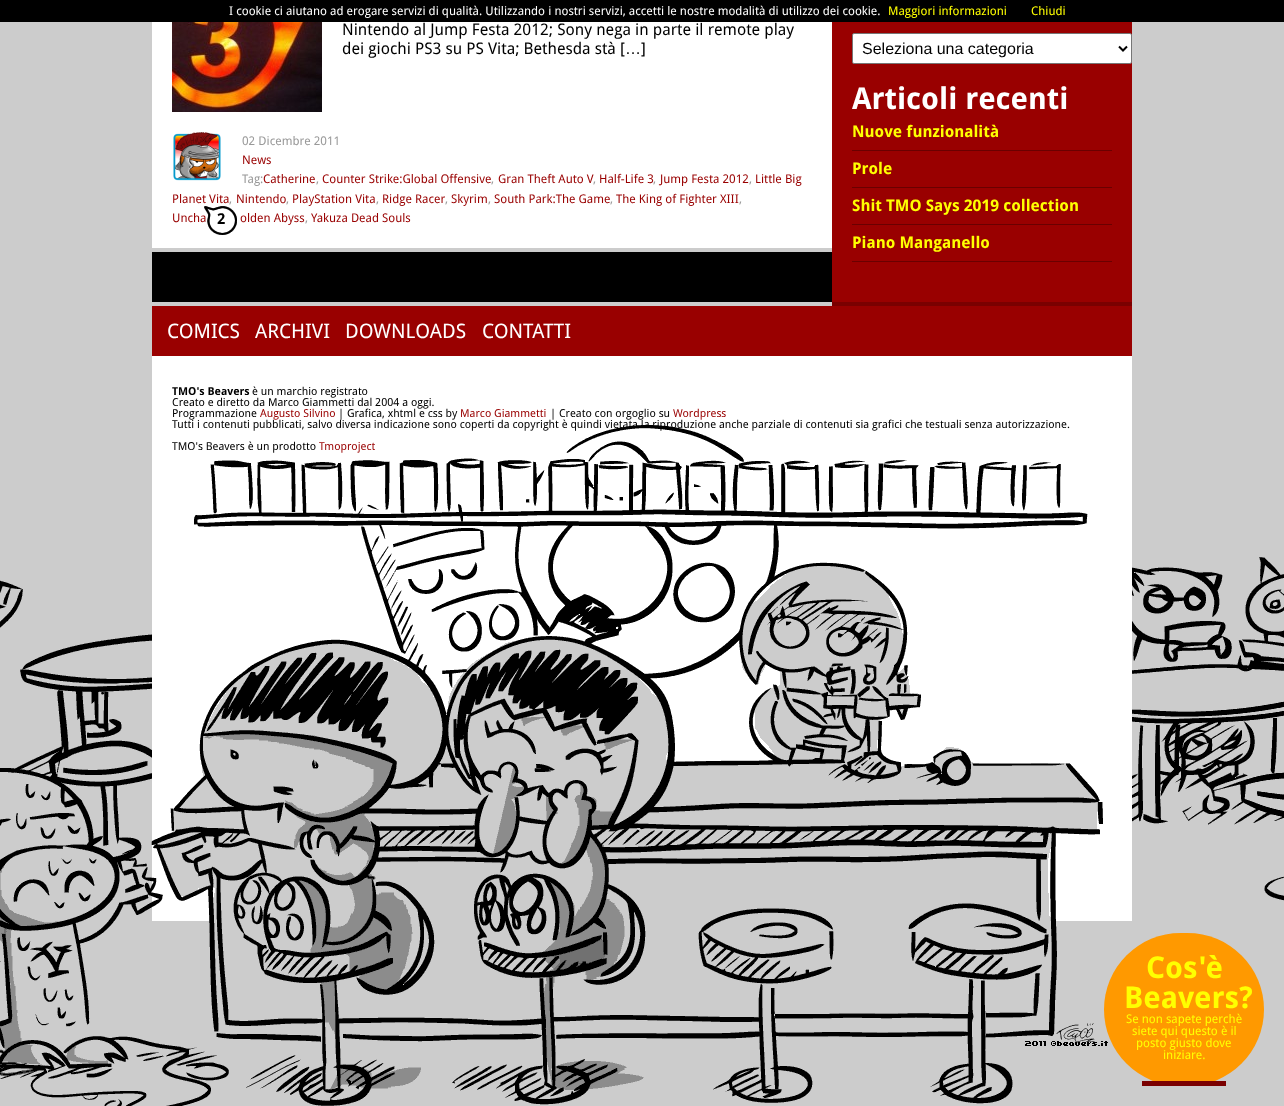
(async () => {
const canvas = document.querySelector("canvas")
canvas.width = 1284
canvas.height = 1106
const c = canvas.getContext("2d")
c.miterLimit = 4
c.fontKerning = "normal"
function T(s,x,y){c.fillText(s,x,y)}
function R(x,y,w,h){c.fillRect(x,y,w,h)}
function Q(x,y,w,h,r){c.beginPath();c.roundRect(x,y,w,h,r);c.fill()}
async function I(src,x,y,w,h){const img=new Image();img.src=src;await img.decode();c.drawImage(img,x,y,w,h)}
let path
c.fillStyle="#ccc"
R(0,0,1284,1106)
c.fillStyle="#000"
R(0,0,1284,22)
c.font="12px Droid Sans"
c.fillStyle="#fff"
T("I cookie ci aiutano ad erogare servizi di qualità. Utilizzando i nostri servizi, accetti le nostre modalità di utilizzo dei cookie.",229,15)
c.fillStyle="#ff0"
T("Maggiori informazioni",888,15)
T("Chiudi",1031,15)
c.fillStyle="#fff"
R(152,22,680,226)
await I("1.png",172,22,150,90)
c.font="16px Droid Sans"
c.fillStyle="#000"
T("Nintendo al Jump Festa 2012; Sony nega in parte il remote play",342,35)
T("dei giochi PS3 su PS Vita; Bethesda stà [",342,54)
c.font="16px Liberation Sans"
T("…",625,54)
c.font="16px Droid Sans"
T("]",641,54)
await I("2.png",173,132,48,49)
c.font="12px Droid Sans"
c.fillStyle="#999"
T("02 Dicembre 2011",242,145)
c.fillStyle="#900"
T("News",242,164)
c.fillStyle="#999"
T("Tag:",242,183)
c.fillStyle="#900"
T("Catherine",263,183)
c.fillStyle="#999"
T(",",316,183)
c.fillStyle="#900"
T("Counter Strike:Global Offensive",322,183)
c.fillStyle="#999"
T(",",491,183)
c.fillStyle="#900"
T("Gran Theft Auto V",498,183)
c.fillStyle="#999"
T(",",593,183)
c.fillStyle="#900"
T("Half-Life 3",599,183)
c.fillStyle="#999"
T(",",653,183)
c.fillStyle="#900"
T("Jump Festa 2012",660,183)
c.fillStyle="#999"
T(",",749,183)
c.fillStyle="#900"
T("Little Big",755,183)
T("Planet Vita",172,203)
c.fillStyle="#999"
T(",",229,203)
c.fillStyle="#900"
T("Nintendo",236,203)
c.fillStyle="#999"
T(",",286,203)
c.fillStyle="#900"
T("PlayStation Vita",292,203)
c.fillStyle="#999"
T(",",376,203)
c.fillStyle="#900"
T("Ridge Racer",382,203)
c.fillStyle="#999"
T(",",445,203)
c.fillStyle="#900"
T("Skyrim",451,203)
c.fillStyle="#999"
T(",",488,203)
c.fillStyle="#900"
T("South Park:The Game",494,203)
c.fillStyle="#999"
T(",",610,203)
c.fillStyle="#900"
T("The King of Fighter XIII",616,203)
c.fillStyle="#999"
T(",",739,203)
c.fillStyle="#900"
T("Uncha",172,222)
T("olden Abyss",240,222)
c.fillStyle="#999"
T(",",305,222)
c.fillStyle="#900"
T("Yakuza Dead Souls",311,222)
await I("3.png",204,206,33,29)
c.font="bold 15px Droid Sans"
c.fillStyle="#000"
T("2",217,224)
R(152,252,680,50)
c.fillStyle="#900"
R(832,22,300,280)
c.fillStyle="#7a0000"
R(832,302,300,4)
c.fillStyle="#fff"
c.beginPath()
c.roundRect(852.5,33.5,279,30,1.5)
c.fill()
c.strokeStyle="#767676"
c.stroke()
path = new Path2D("M1119 46.5l4 4l4-4")
c.strokeStyle="#000"
c.lineWidth=2
c.stroke(path)
c.font="16px Liberation Sans"
c.fillStyle="#000"
T("Seleziona una categoria",862,54)
c.font="bold 30px Droid Sans"
c.fillStyle="#fff"
T("Articoli recenti",852,109)
c.fillStyle="#6a0000"
R(852,150,260,1)
c.font="bold 16px Droid Sans"
c.fillStyle="#ff0"
T("Nuove funzionalità",852,137)
c.fillStyle="#6a0000"
R(852,187,260,1)
c.fillStyle="#ff0"
T("Prole",852,174)
c.fillStyle="#6a0000"
R(852,224,260,1)
c.fillStyle="#ff0"
T("Shit TMO Says 2019 collection",852,211)
c.fillStyle="#6a0000"
R(852,261,260,1)
c.fillStyle="#ff0"
T("Piano Manganello",852,248)
await I("4.png",0,356,1284,750)
c.fillStyle="#900"
R(152,306,980,50)
c.font="20px Droid Sans"
c.fillStyle="#fff"
T("COMICS",167,338)
T("ARCHIVI",255,338)
T("DOWNLOADS",345,338)
T("CONTATTI",482,338)
c.font="bold 11px Droid Sans"
c.fillStyle="#000"
T("TMO's Beavers",172,395)
c.font="11px Droid Sans"
T("è un marchio registrato",252,395)
T("Creato e diretto da Marco Giammetti dal 2004 a oggi.",172,406)
T("Programmazione",172,417)
c.fillStyle="#900"
T("Augusto Silvino",260,417)
c.fillStyle="#000"
T("| Grafica, xhtml e css by",338,417)
c.fillStyle="#900"
T("Marco Giammetti",460,417)
c.fillStyle="#000"
T("| Creato con orgoglio su",550,417)
c.fillStyle="#900"
T("Wordpress",673,417)
c.fillStyle="#000"
T("Tutti i contenuti pubblicati, salvo diversa indicazione sono coperti da copyright è quindi vietata la riproduzione anche parziale di contenuti sia grafici che testuali senza autorizzazione.",172,428)
T("TMO's Beavers è un prodotto",172,450)
c.fillStyle="#900"
T("Tmoproject",319,450)
c.fillStyle="#f90"
Q(1104,933,160,153,76.5)
c.fillStyle="#7a0000"
R(1142,1081,84,5)
c.font="bold 30px Droid Sans"
c.fillStyle="#ff0"
T("Cos'è",1146,978)
T("Beavers?",1124,1008)
c.font="12px Droid Sans"
T("Se non sapete perchè",1126,1023)
T("siete qui questo è il",1132,1035)
T("posto giusto dove",1136,1047)
T("iniziare.",1163,1059)
})()
